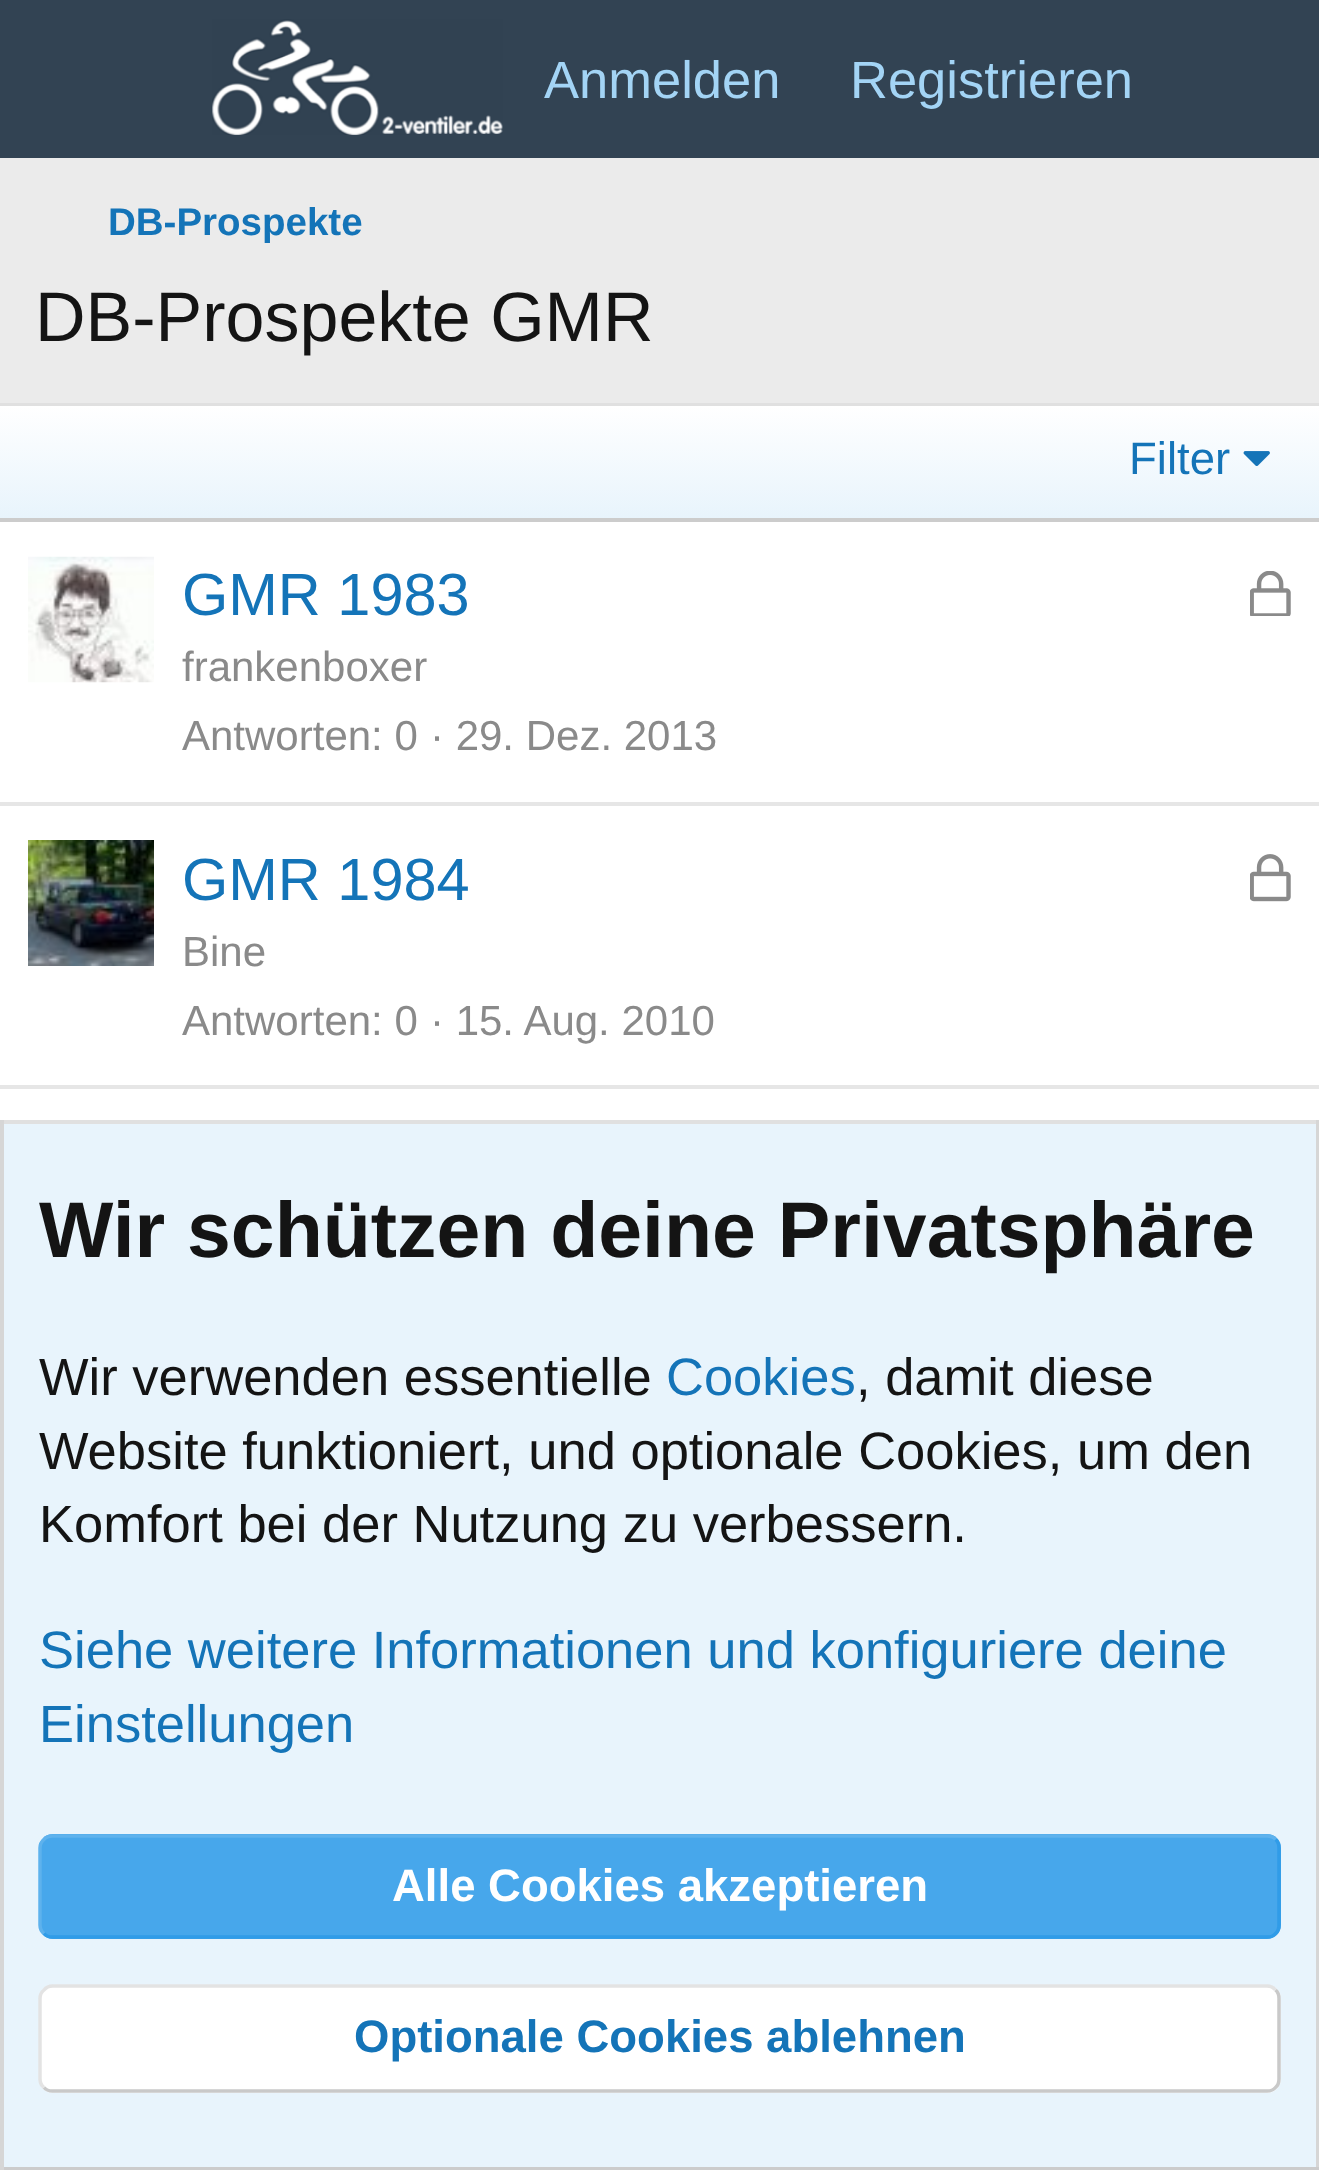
(async () => {
const canvas = document.querySelector("canvas")
canvas.width = 1319
canvas.height = 2170
const c = canvas.getContext("2d")
c.miterLimit = 4
c.fontKerning = "normal"
function T(s,x,y){c.fillText(s,x,y)}
function R(x,y,w,h){c.fillRect(x,y,w,h)}
function Q(x,y,w,h,r){c.beginPath();c.roundRect(x,y,w,h,r);c.fill()}
async function I(src,x,y,w,h){const img=new Image();img.src=src;await img.decode();c.drawImage(img,x,y,w,h)}
let gradient, path
c.fillStyle="#ebebeb"
R(0,0,1319,2170)
c.fillStyle="#324353"
R(0,0,1319,158)
await I("1.png",212,19,291,116)
c.font="52.5px Liberation Sans"
c.fillStyle="#a3d4f5"
T("Anmelden",544,98)
T("Registrieren",850,98)
c.font="bold 38.5px Liberation Sans"
c.fillStyle="#1474b8"
T("DB-Prospekte",108,235)
c.font="70px Liberation Sans"
c.fillStyle="#141414"
T("DB-Prospekte GMR",35,341)
c.fillStyle="#fff"
R(0,522,1319,598)
c.fillStyle="#e0e0e0"
R(0,403,1319,3)
gradient = c.createLinearGradient(660,518,660,406)
gradient.addColorStop(0,"#e8f4fc")
gradient.addColorStop(1,"#fff")
c.fillStyle = gradient
R(0,406,1319,112)
c.fillStyle="#ccc"
R(0,518,1319,4)
c.font="45.5px Liberation Sans"
c.fillStyle="#1474b8"
T("Filter",1129,474)
await I("2.png",1243,451,27,15)
await I("3.png",28,556,126,127)
c.font="59.5px Liberation Sans"
T("GMR 1983",182,615)
await I("4.png",1250,571,41,45)
c.font="42px Liberation Sans"
c.fillStyle="#8a8a8a"
T("frankenboxer",182,681)
T("Antworten: 0",182,750)
T("· 29. Dez. 2013",430,750)
c.fillStyle="#e6e6e6"
R(0,802,1319,4)
await I("5.png",28,840,126,126)
c.font="59.5px Liberation Sans"
c.fillStyle="#1474b8"
T("GMR 1984",182,900)
await I("6.png",1250,854,41,48)
c.font="42px Liberation Sans"
c.fillStyle="#8a8a8a"
T("Bine",182,966)
T("Antworten: 0",182,1035)
T("· 15. Aug. 2010",430,1035)
c.fillStyle="#e6e6e6"
R(0,1085,1319,4)
c.fillStyle="#e8f4fc"
R(4,1124,1312,1043)
c.fillStyle="#e0e0e0"
R(0,1120,1319,4)
c.fillStyle="#d6d6d6"
R(1316,1120,3,1050)
c.fillStyle="#ccc"
R(0,2167,1319,3)
c.fillStyle="#d6d6d6"
R(0,1120,4,1050)
c.font="bold 78.75px Liberation Sans"
c.fillStyle="#141414"
T("Wir schützen deine Privatsphäre",39,1257)
c.font="52.5px Liberation Sans"
T("Wir verwenden essentielle",39,1395)
c.fillStyle="#1474b8"
T("Cookies",666,1395)
c.fillStyle="#141414"
T(", damit diese",856,1395)
T("Website funktioniert, und optionale Cookies, um den",39,1469)
T("Komfort bei der Nutzung zu verbessern.",39,1542)
c.fillStyle="#1474b8"
T("Siehe weitere Informationen und konfiguriere deine",39,1668)
T("Einstellungen",39,1742)
c.fillStyle="#47a7eb"
Q(39,1834,1242,105,14)
path = new Path2D("M1275.5 1839.5c2.5 2 3.5 5.5 3.5 8.5v77c0 3-1 6.5-3.5 8.5c-2 2.5-5.5 3.5-8.5 3.5h-1214.5c-3 0-6.5-1-8.5-3.5")
c.strokeStyle="#309ce8"
c.lineWidth=3.5
c.stroke(path)
path = new Path2D("M44 1933.5c-2.5-2-4-5.5-4-8.5v-77c0-3 1.5-6.5 4-8.5c2-2.5 5.5-3.5 8.5-3.5h1214.5c3 0 6.5 1 8.5 3.5")
c.strokeStyle="#5eb2ed"
c.stroke(path)
c.font="bold 45.5px Liberation Sans"
c.fillStyle="#fff"
T("Alle Cookies akzeptieren",392,1901)
Q(39,1985,1242,108,14)
path = new Path2D("M1275.5 1990c2.5 2 3.5 5.5 3.5 8.5v80.5c0 3-1 6.5-3.5 8.5c-2 2.5-5.5 3.5-8.5 3.5h-1214.5c-3 0-6.5-1-8.5-3.5")
c.strokeStyle="#c9c9c9"
c.stroke(path)
path = new Path2D("M44 2087.5c-2.5-2-4-5.5-4-8.5v-80.5c0-3 1.5-6.5 4-8.5c2-2.5 5.5-4 8.5-4h1214.5c3 0 6.5 1.5 8.5 4")
c.strokeStyle="#e3e3e3"
c.stroke(path)
c.fillStyle="#1474b8"
T("Optionale Cookies ablehnen",354,2052)
})()
